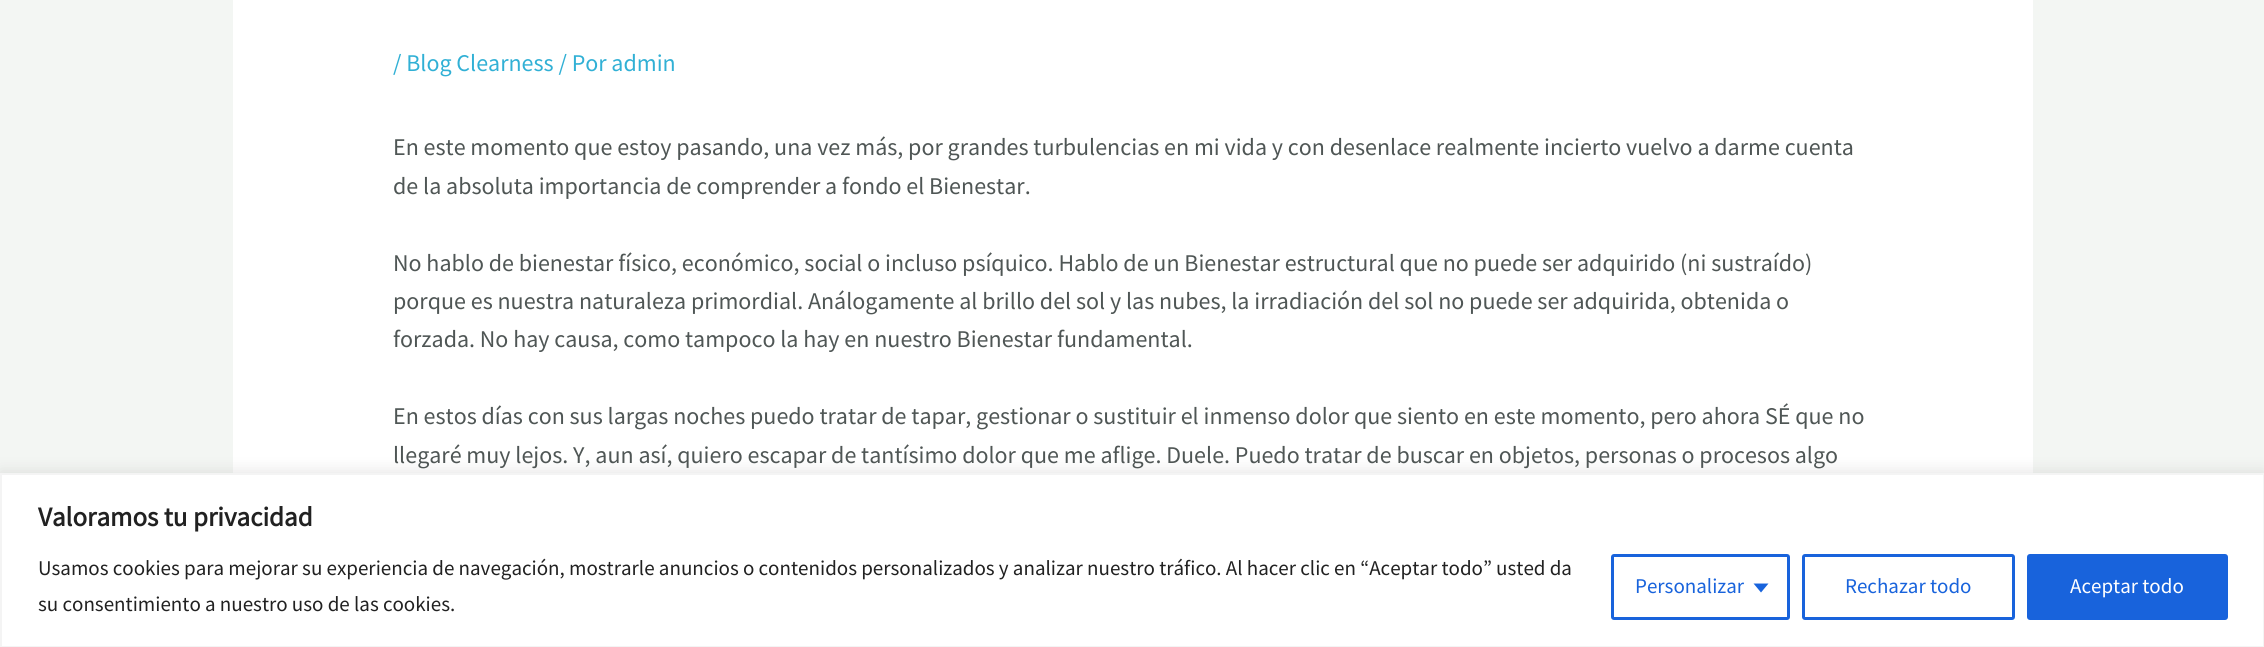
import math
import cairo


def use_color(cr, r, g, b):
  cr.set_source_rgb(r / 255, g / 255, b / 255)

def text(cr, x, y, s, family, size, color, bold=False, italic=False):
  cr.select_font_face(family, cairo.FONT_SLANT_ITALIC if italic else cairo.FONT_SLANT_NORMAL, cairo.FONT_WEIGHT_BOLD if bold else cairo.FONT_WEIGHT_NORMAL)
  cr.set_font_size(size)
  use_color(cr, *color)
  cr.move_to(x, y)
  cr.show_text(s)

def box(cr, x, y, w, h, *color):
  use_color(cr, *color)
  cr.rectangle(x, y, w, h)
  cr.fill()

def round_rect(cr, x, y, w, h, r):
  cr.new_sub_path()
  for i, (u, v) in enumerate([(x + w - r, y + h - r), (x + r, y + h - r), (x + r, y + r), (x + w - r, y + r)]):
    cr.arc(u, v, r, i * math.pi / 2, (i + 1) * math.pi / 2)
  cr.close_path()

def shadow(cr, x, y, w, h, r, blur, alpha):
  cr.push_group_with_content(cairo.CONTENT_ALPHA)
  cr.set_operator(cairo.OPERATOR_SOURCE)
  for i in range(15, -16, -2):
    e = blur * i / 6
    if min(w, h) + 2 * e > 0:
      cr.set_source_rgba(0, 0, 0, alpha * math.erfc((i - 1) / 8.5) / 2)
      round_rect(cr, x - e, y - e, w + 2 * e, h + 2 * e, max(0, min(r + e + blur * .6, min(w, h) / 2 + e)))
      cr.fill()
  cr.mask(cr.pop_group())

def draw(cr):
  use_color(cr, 243, 246, 243)
  cr.paint()
  box(cr, 233, 0, 1800, 473, 255, 255, 255)
  use_color(cr, 172, 171, 171)
  shadow(cr, 0, 471, 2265, 176, 0, 7.5, 0.3)
  use_color(cr, 255, 255, 255)
  cr.rectangle(1, 474, 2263, 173)
  cr.fill_preserve()
  use_color(cr, 244, 244, 244)
  cr.stroke()
  round_rect(cr, 1612.5, 555.5, 176, 63, 1.5)
  use_color(cr, 24, 99, 220)
  cr.set_line_width(3)
  cr.stroke()
  cr.new_path()
  cr.move_to(1753.5, 583.5)
  cr.line_to(1768.5, 583.5)
  cr.line_to(1761, 592.5)
  cr.close_path()
  cr.fill()
  round_rect(cr, 1803.5, 555.5, 210, 63, 1.5)
  cr.stroke()
  round_rect(cr, 2028.5, 555.5, 198, 63, 1.5)
  cr.fill_preserve()
  cr.stroke()
  text(cr, 393, 71, "/ Blog Clearness / Por admin", "Source Sans Pro", 24, (49, 176, 213))
  text(cr, 393, 155, "En este momento que estoy pasando, una vez más, por grandes turbulencias en mi vida y con desenlace realmente incierto vuelvo a darme cuenta", "Source Sans Pro", 24, (79, 86, 85))
  text(cr, 393, 194, "de la absoluta importancia de comprender a fondo el Bienestar.", "Source Sans Pro", 24, (79, 86, 85))
  text(cr, 393, 271, "No hablo de bienestar físico, económico, social o incluso psíquico. Hablo de un Bienestar estructural que no puede ser adquirido (ni sustraído)", "Source Sans Pro", 24, (79, 86, 85))
  text(cr, 393, 309, "porque es nuestra naturaleza primordial. Análogamente al brillo del sol y las nubes, la irradiación del sol no puede ser adquirida, obtenida o", "Source Sans Pro", 24, (79, 86, 85))
  text(cr, 393, 347, "forzada. No hay causa, como tampoco la hay en nuestro Bienestar fundamental.", "Source Sans Pro", 24, (79, 86, 85))
  text(cr, 393, 424, "En estos días con sus largas noches puedo tratar de tapar, gestionar o sustituir el inmenso dolor que siento en este momento, pero ahora SÉ que no", "Source Sans Pro", 24, (79, 86, 85))
  text(cr, 393, 463, "llegaré muy lejos. Y, aun así, quiero escapar de tantísimo dolor que me aflige. Duele. Puedo tratar de buscar en objetos, personas o procesos algo", "Source Sans Pro", 24, (79, 86, 85))
  text(cr, 38, 526, "Valoramos tu privacidad", "Source Sans Pro", 27, (33, 33, 33), bold=True)
  text(cr, 38, 575, "Usamos cookies para mejorar su experiencia de navegación, mostrarle anuncios o contenidos personalizados y analizar nuestro tráfico. Al hacer clic en “Aceptar todo” usted da", "Source Sans Pro", 21, (33, 33, 33))
  text(cr, 38, 611, "su consentimiento a nuestro uso de las cookies.", "Source Sans Pro", 21, (33, 33, 33))
  text(cr, 1635, 593, "Personalizar", "Source Sans Pro", 21, (24, 99, 220))
  text(cr, 1845, 593, "Rechazar todo", "Source Sans Pro", 21, (24, 99, 220))
  text(cr, 2070, 593, "Aceptar todo", "Source Sans Pro", 21, (255, 255, 255))


surface = cairo.ImageSurface(cairo.FORMAT_RGB24, 2264, 647)
cr = cairo.Context(surface)
options = cairo.FontOptions()
options.set_hint_metrics(cairo.HINT_METRICS_OFF)
options.set_hint_style(cairo.HINT_STYLE_NONE)
cr.set_font_options(options)
cr.set_miter_limit(4)
draw(cr)
surface.write_to_png("out.png")
